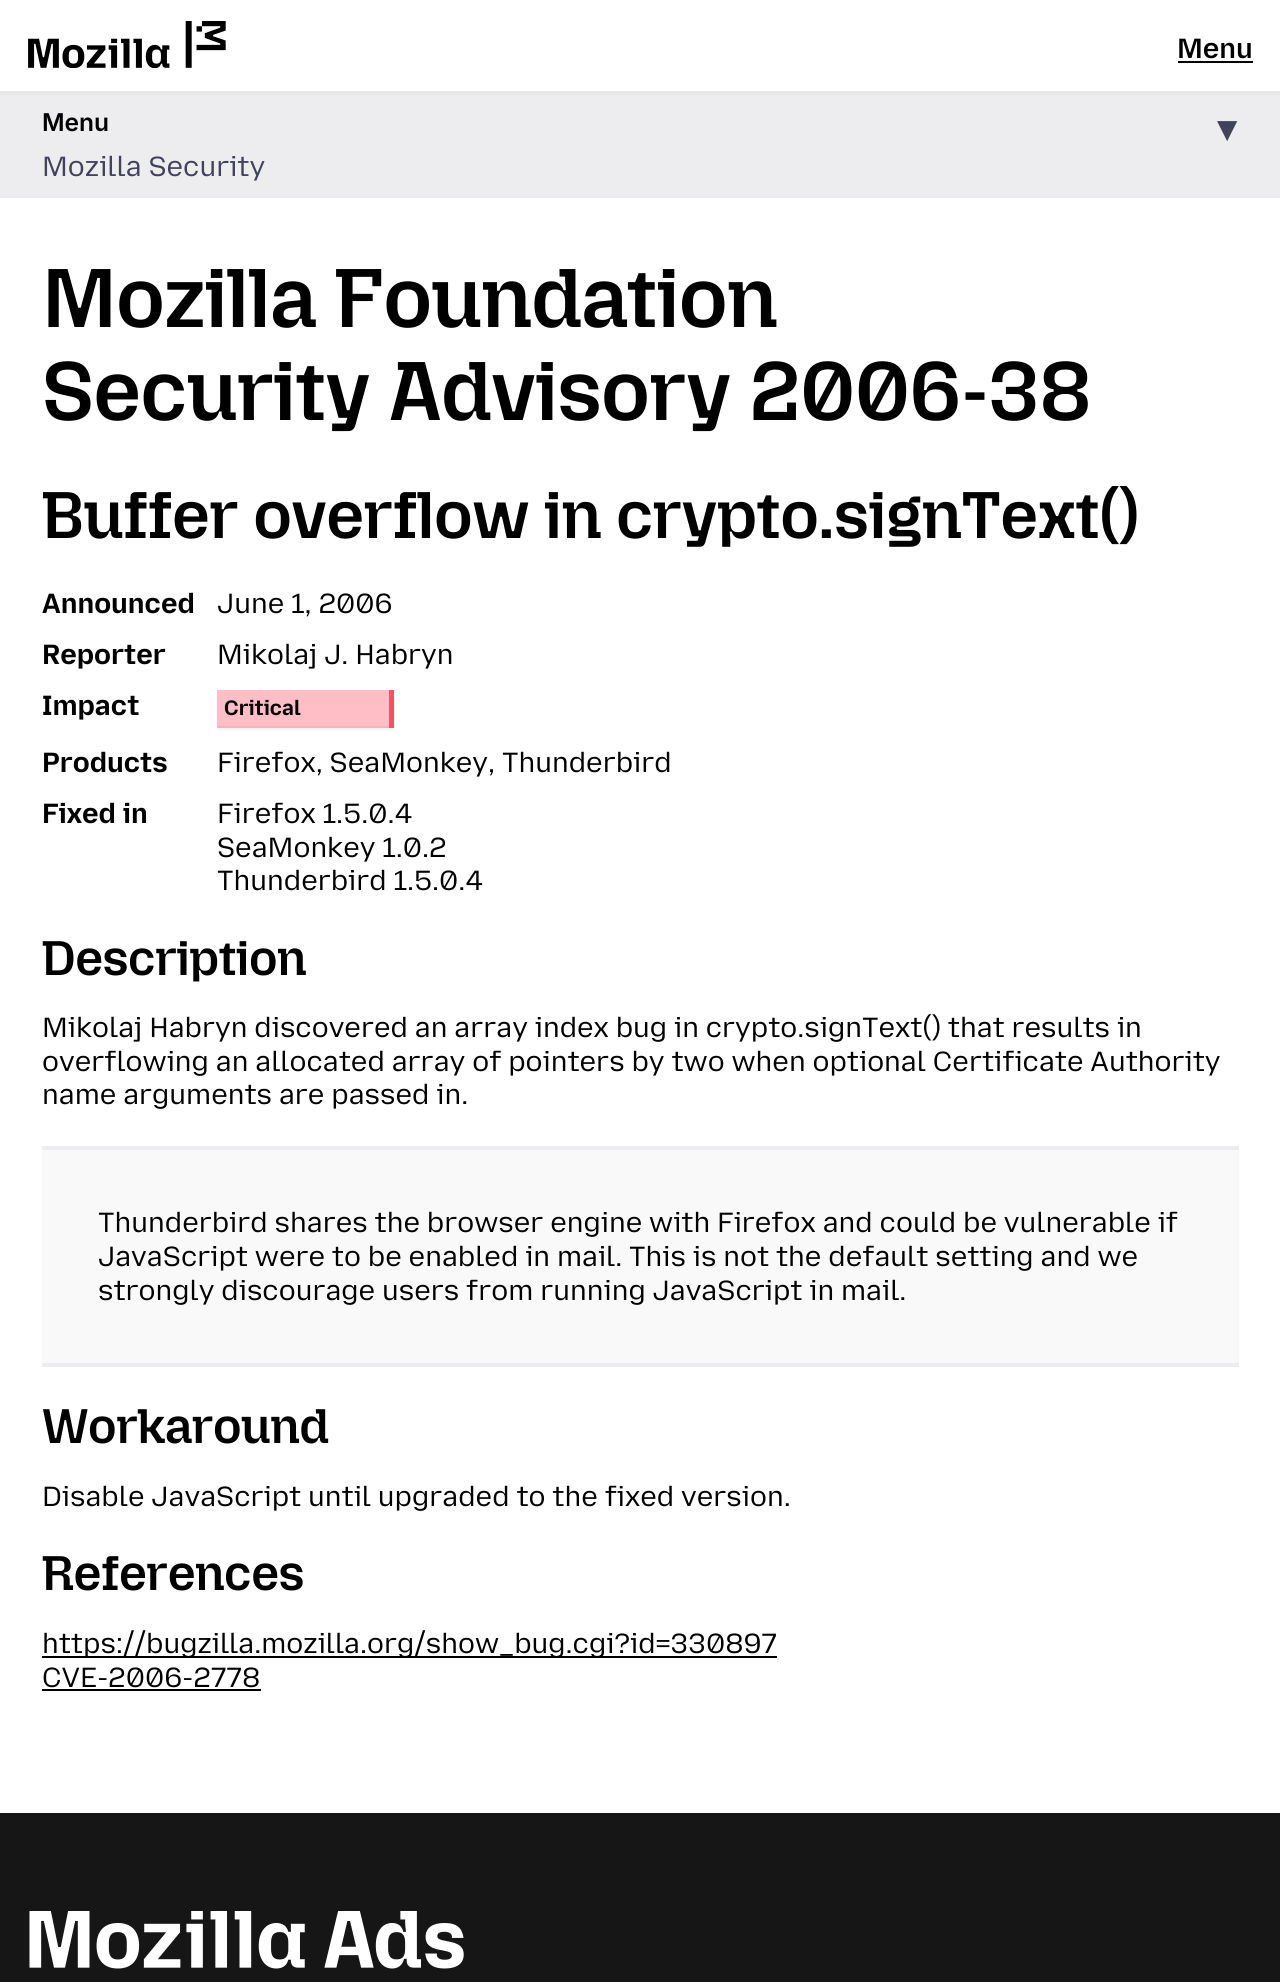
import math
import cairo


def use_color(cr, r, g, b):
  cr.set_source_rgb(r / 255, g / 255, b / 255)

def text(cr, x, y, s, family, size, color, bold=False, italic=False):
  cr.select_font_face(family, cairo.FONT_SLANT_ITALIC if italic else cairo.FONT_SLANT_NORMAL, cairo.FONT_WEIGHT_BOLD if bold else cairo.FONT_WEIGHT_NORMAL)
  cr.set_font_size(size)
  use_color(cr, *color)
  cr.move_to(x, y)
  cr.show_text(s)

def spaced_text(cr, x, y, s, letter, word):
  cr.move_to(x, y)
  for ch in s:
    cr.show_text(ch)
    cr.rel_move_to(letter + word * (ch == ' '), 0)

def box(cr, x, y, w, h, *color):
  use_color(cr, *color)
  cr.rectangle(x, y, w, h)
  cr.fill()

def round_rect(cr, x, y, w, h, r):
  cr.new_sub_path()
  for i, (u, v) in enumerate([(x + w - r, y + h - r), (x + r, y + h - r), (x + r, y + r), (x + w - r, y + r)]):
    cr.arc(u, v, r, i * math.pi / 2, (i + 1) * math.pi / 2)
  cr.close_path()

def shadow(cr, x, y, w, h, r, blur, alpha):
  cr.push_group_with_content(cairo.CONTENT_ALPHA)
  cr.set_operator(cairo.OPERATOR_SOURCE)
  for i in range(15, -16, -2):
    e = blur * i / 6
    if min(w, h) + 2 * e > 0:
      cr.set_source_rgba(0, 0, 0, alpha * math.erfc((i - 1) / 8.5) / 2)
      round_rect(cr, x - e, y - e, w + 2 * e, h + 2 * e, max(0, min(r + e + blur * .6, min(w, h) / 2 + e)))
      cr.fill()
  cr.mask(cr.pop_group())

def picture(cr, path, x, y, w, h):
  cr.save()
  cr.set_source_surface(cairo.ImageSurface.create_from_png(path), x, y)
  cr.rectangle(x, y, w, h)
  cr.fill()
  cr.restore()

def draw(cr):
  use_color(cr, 255, 255, 255)
  cr.paint()
  box(cr, 0, 91, 1280, 4, 232, 232, 232)
  picture(cr, "img_01.png", 28, 21, 198, 47)
  box(cr, 1178, 61, 75, 2, 0, 0, 0)
  box(cr, 0, 95, 1280, 103, 237, 237, 240)
  use_color(cr, 0, 0, 0)
  shadow(cr, 217, 691, 177, 39, 0, 1, 0.05)
  box(cr, 217, 690, 172, 36, 255, 189, 197)
  box(cr, 217, 726, 172, 2, 242, 180, 187)
  box(cr, 389, 690, 5, 38, 255, 79, 94)
  box(cr, 42, 1150, 1197, 213, 249, 249, 250)
  box(cr, 42, 1146, 1197, 4, 237, 237, 240)
  box(cr, 42, 1363, 1197, 4, 237, 237, 240)
  box(cr, 42, 1656, 735, 2, 0, 0, 0)
  box(cr, 42, 1689, 219, 2, 0, 0, 0)
  box(cr, 0, 1813, 1280, 169, 22, 22, 22)
  picture(cr, "img_02.png", 29, 1911, 435, 58)
  text(cr, 1177, 58, "Menu", "Mozilla Text SemiBold", 28, (0, 0, 0))
  text(cr, 42, 131, "Menu", "Inter SemiBold", 24.5, (0, 0, 0))
  cr.save()
  cr.translate(1217, 121)
  cr.rotate(90 * math.pi / 180)
  text(cr, 0, 0, "▸", "DejaVu Sans", 37, (66, 66, 90), bold=True)
  cr.restore()
  text(cr, 42, 176, "Mozilla Security", "Mozilla Text", 28, (66, 66, 90))
  cr.select_font_face("Mozilla Headline SemiBold")
  cr.set_font_size(84)
  use_color(cr, 0, 0, 0)
  spaced_text(cr, 42, 327, "Mozilla Foundation", -0.8, 0)
  spaced_text(cr, 42, 420, "Security Advisory 2006-38", -0.8, 0)
  cr.set_font_size(66.5)
  spaced_text(cr, 42, 538, "Buffer overflow in crypto.signText()", -0.65, 0)
  text(cr, 42, 613, "Announced", "Mozilla Text", 28, (0, 0, 0), bold=True)
  text(cr, 217, 613, "June 1, 2006", "Mozilla Text", 28, (0, 0, 0))
  text(cr, 42, 664, "Reporter", "Mozilla Text", 28, (0, 0, 0), bold=True)
  text(cr, 217, 664, "Mikolaj J. Habryn", "Mozilla Text", 28, (0, 0, 0))
  text(cr, 42, 715, "Impact", "Mozilla Text", 28, (0, 0, 0), bold=True)
  text(cr, 224, 715, "Critical", "Mozilla Text", 21, (0, 0, 0), bold=True)
  text(cr, 42, 772, "Products", "Mozilla Text", 28, (0, 0, 0), bold=True)
  text(cr, 217, 772, "Firefox, SeaMonkey, Thunderbird", "Mozilla Text", 28, (0, 0, 0))
  text(cr, 42, 823, "Fixed in", "Mozilla Text", 28, (0, 0, 0), bold=True)
  text(cr, 217, 823, "Firefox 1.5.0.4", "Mozilla Text", 28, (0, 0, 0))
  text(cr, 217, 857, "SeaMonkey 1.0.2", "Mozilla Text", 28, (0, 0, 0))
  text(cr, 217, 890, "Thunderbird 1.5.0.4", "Mozilla Text", 28, (0, 0, 0))
  cr.select_font_face("Mozilla Headline SemiBold")
  cr.set_font_size(49)
  spaced_text(cr, 42, 975, "Description", -0.5, 0)
  text(cr, 42, 1037, "Mikolaj Habryn discovered an array index bug in crypto.signText() that results in", "Mozilla Text", 28, (0, 0, 0))
  text(cr, 42, 1071, "overflowing an allocated array of pointers by two when optional Certificate Authority", "Mozilla Text", 28, (0, 0, 0))
  text(cr, 42, 1104, "name arguments are passed in.", "Mozilla Text", 28, (0, 0, 0))
  text(cr, 98, 1232, "Thunderbird shares the browser engine with Firefox and could be vulnerable if", "Mozilla Text", 28, (0, 0, 0))
  text(cr, 98, 1266, "JavaScript were to be enabled in mail. This is not the default setting and we", "Mozilla Text", 28, (0, 0, 0))
  text(cr, 98, 1300, "strongly discourage users from running JavaScript in mail.", "Mozilla Text", 28, (0, 0, 0))
  cr.select_font_face("Mozilla Headline SemiBold")
  cr.set_font_size(49)
  spaced_text(cr, 42, 1443, "Workaround", -0.5, 0)
  text(cr, 42, 1506, "Disable JavaScript until upgraded to the fixed version.", "Mozilla Text", 28, (0, 0, 0))
  cr.select_font_face("Mozilla Headline SemiBold")
  cr.set_font_size(49)
  spaced_text(cr, 42, 1590, "References", -0.5, 0)
  text(cr, 42, 1653, "https://bugzilla.mozilla.org/show_bug.cgi?id=330897", "Mozilla Text", 28, (0, 0, 0))
  text(cr, 42, 1687, "CVE-2006-2778", "Mozilla Text", 28, (0, 0, 0))


surface = cairo.ImageSurface(cairo.FORMAT_RGB24, 1280, 1982)
cr = cairo.Context(surface)
options = cairo.FontOptions()
options.set_hint_metrics(cairo.HINT_METRICS_OFF)
options.set_hint_style(cairo.HINT_STYLE_NONE)
cr.set_font_options(options)
cr.set_miter_limit(4)
draw(cr)
surface.write_to_png("out.png")
